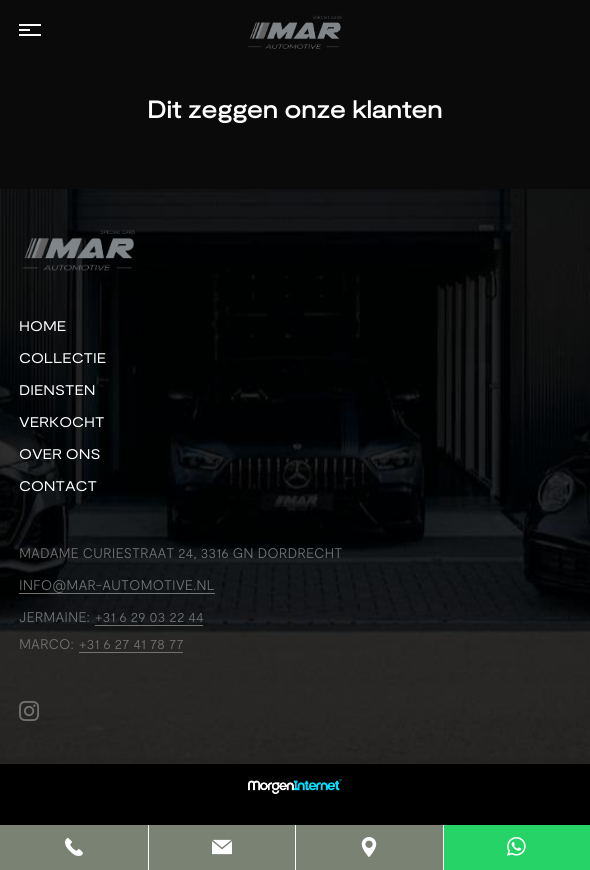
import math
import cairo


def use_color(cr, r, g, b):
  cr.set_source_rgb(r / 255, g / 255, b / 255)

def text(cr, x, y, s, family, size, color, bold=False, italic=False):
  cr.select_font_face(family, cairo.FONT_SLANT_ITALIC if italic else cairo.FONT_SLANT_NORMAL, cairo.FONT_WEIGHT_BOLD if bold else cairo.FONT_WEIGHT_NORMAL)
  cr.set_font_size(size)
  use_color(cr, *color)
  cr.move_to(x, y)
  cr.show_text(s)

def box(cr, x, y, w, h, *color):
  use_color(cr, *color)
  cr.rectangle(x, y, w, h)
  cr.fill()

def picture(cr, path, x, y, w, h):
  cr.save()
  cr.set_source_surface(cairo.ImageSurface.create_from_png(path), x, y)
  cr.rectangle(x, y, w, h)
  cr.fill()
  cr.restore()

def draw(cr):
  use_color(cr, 10, 10, 10)
  cr.paint()
  box(cr, 19, 24, 22, 2, 255, 255, 255)
  box(cr, 19, 29, 11, 2, 255, 255, 255)
  box(cr, 19, 34, 22, 2, 255, 255, 255)
  picture(cr, "img_01.png", 248, 15, 94, 34)
  picture(cr, "img_02.png", 0, 189, 590, 575)
  picture(cr, "img_03.png", 22, 230, 113, 41)
  box(cr, 19, 593, 196, 1, 114, 114, 114)
  box(cr, 95, 625, 108, 1, 114, 114, 114)
  box(cr, 79, 652, 104, 1, 114, 114, 114)
  picture(cr, "img_04.png", 19, 701, 20, 20)
  box(cr, 0, 764, 590, 61, 0, 0, 0)
  picture(cr, "img_05.png", 248, 779, 94, 15)
  box(cr, 0, 825, 443, 45, 121, 130, 115)
  picture(cr, "img_06.png", 65, 838, 18, 18)
  box(cr, 148, 825, 1, 45, 255, 255, 255)
  picture(cr, "img_07.png", 212, 839, 20, 16)
  box(cr, 295, 825, 1, 45, 255, 255, 255)
  picture(cr, "img_08.png", 361, 837, 16, 20)
  box(cr, 444, 825, 146, 45, 37, 211, 102)
  box(cr, 443, 825, 1, 45, 255, 255, 255)
  picture(cr, "img_09.png", 507, 837, 19, 19)
  text(cr, 147, 118, "Dit zeggen onze klanten", "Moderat", 24, (255, 255, 255), bold=True)
  text(cr, 19, 331, "HOME", "Moderat", 14, (255, 255, 255))
  text(cr, 19, 363, "COLLECTIE", "Moderat", 14, (255, 255, 255))
  text(cr, 19, 395, "DIENSTEN", "Moderat", 14, (255, 255, 255))
  text(cr, 19, 427, "VERKOCHT", "Moderat", 14, (255, 255, 255))
  text(cr, 19, 459, "OVER ONS", "Moderat", 14, (255, 255, 255))
  text(cr, 19, 491, "CONTACT", "Moderat", 14, (255, 255, 255))
  text(cr, 19, 558, "MADAME CURIESTRAAT 24, 3316 GN DORDRECHT", "Moderat Light", 14, (114, 114, 114))
  text(cr, 19, 590, "INFO@MAR-AUTOMOTIVE.NL", "Moderat Light", 14, (114, 114, 114))
  text(cr, 19, 622, "JERMAINE:", "Moderat Light", 14, (114, 114, 114))
  text(cr, 95, 622, "+31 6 29 03 22 44", "Moderat Light", 14, (114, 114, 114))
  text(cr, 19, 649, "MARCO:", "Moderat Light", 14, (114, 114, 114))
  text(cr, 79, 649, "+31 6 27 41 78 77", "Moderat Light", 14, (114, 114, 114))


surface = cairo.ImageSurface(cairo.FORMAT_RGB24, 590, 870)
cr = cairo.Context(surface)
options = cairo.FontOptions()
options.set_hint_metrics(cairo.HINT_METRICS_OFF)
options.set_hint_style(cairo.HINT_STYLE_NONE)
cr.set_font_options(options)
cr.set_miter_limit(4)
draw(cr)
surface.write_to_png("out.png")
